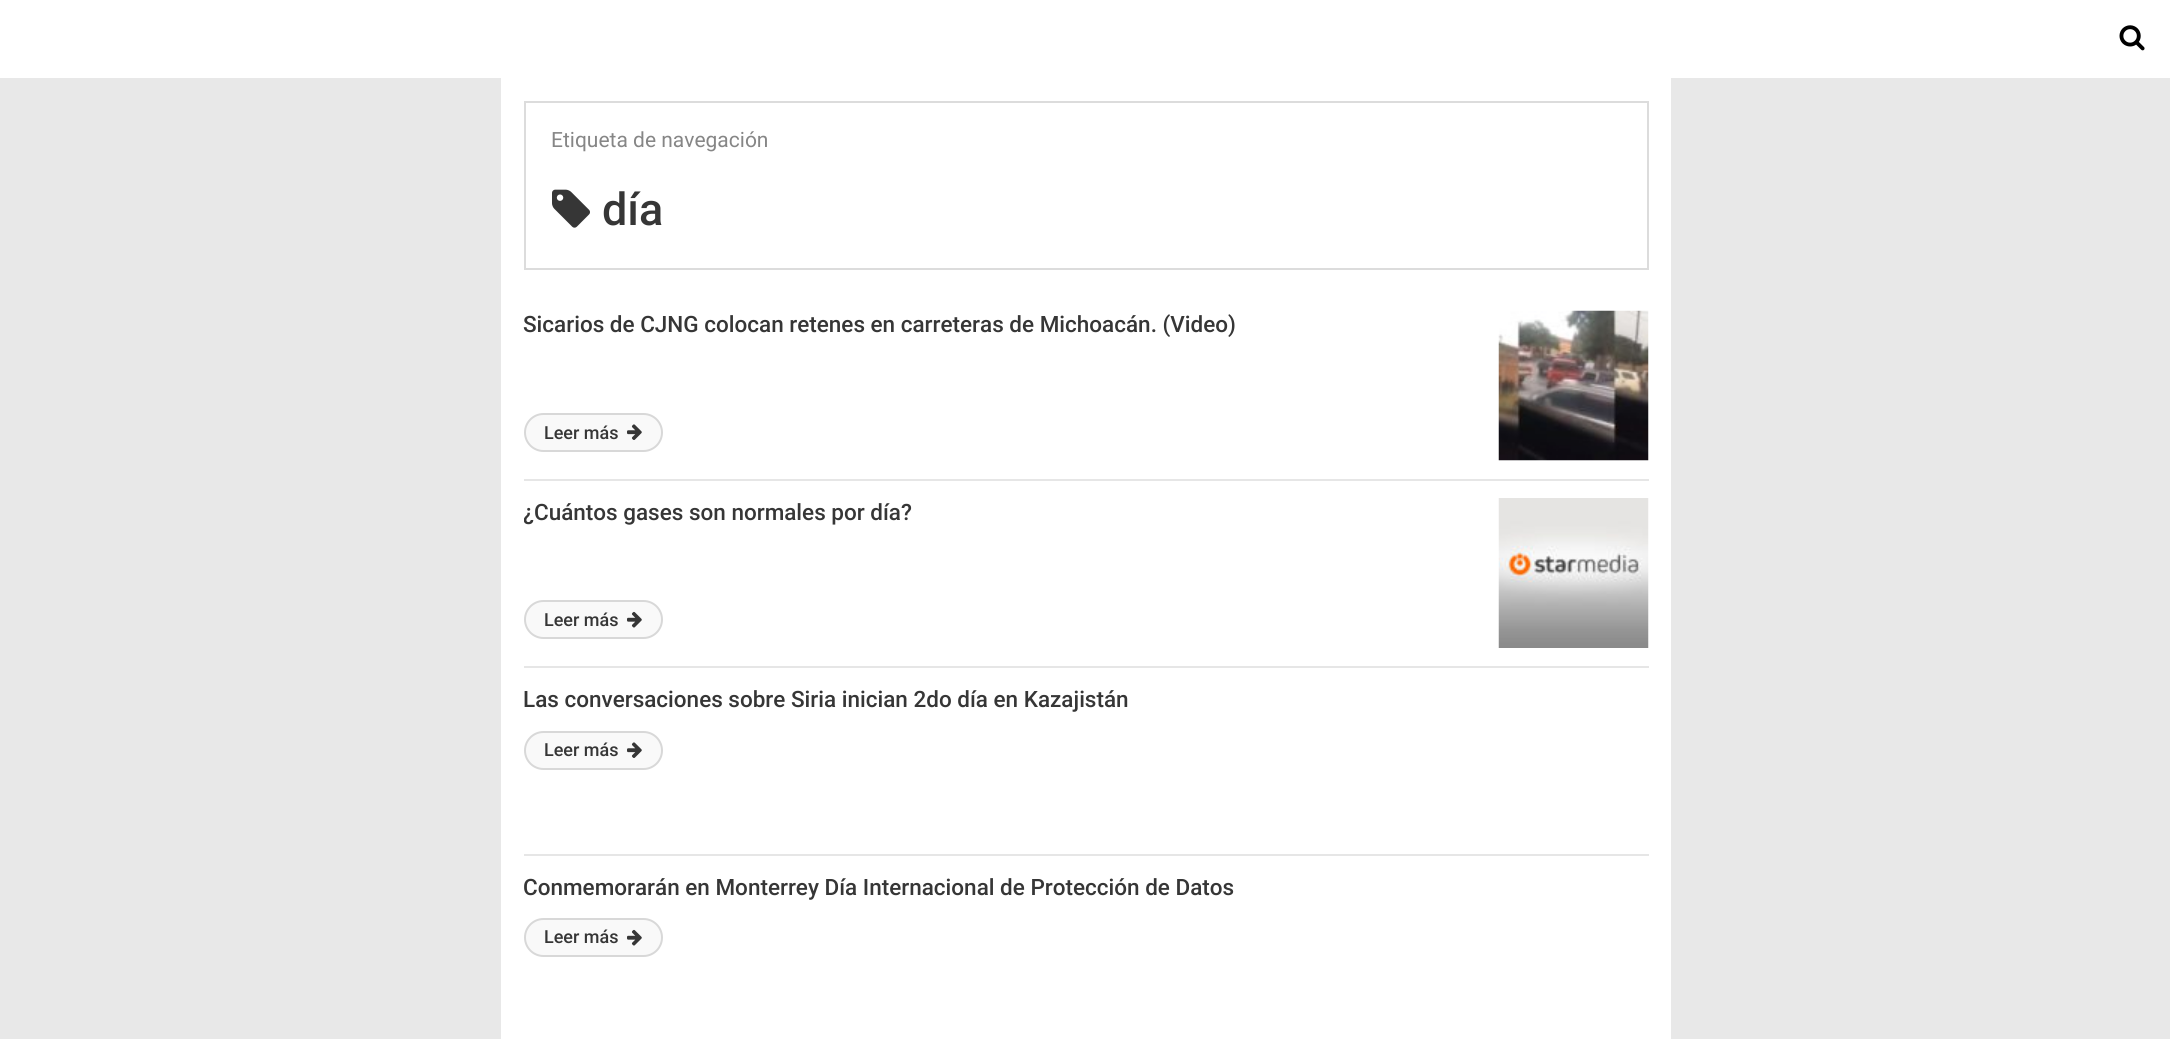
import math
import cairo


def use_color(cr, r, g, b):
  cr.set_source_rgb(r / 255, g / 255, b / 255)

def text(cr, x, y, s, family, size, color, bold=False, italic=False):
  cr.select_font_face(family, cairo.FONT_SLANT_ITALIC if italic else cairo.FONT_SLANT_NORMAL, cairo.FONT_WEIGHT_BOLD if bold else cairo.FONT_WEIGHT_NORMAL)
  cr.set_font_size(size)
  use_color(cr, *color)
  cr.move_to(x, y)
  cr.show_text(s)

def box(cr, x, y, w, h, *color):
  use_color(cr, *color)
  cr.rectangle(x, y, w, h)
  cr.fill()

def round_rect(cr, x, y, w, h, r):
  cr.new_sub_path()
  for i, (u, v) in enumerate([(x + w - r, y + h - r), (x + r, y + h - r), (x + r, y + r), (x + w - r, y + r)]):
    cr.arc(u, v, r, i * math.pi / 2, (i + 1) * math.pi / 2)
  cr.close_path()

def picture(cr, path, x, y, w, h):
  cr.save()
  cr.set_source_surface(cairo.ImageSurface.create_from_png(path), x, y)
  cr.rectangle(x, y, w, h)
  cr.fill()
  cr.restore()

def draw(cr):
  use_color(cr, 232, 232, 232)
  cr.paint()
  box(cr, 501, 78, 1170, 961, 255, 255, 255)
  box(cr, 0, 0, 2170, 78, 255, 255, 255)
  picture(cr, "img_01.png", 2119, 25, 26, 26)
  cr.rectangle(525, 102, 1123, 167)
  use_color(cr, 220, 220, 220)
  cr.stroke()
  picture(cr, "img_02.png", 552, 189, 38, 39)
  box(cr, 524, 479, 1125, 2, 230, 230, 230)
  picture(cr, "img_03.png", 1498, 310, 151, 151)
  use_color(cr, 249, 249, 249)
  round_rect(cr, 525, 414, 137, 37, 18.5)
  cr.fill_preserve()
  use_color(cr, 216, 216, 216)
  cr.stroke()
  picture(cr, "img_04.png", 627, 424, 15, 16)
  box(cr, 524, 666, 1125, 2, 230, 230, 230)
  picture(cr, "img_05.png", 1498, 498, 151, 150)
  use_color(cr, 249, 249, 249)
  round_rect(cr, 525, 601, 137, 37, 18.5)
  cr.fill_preserve()
  use_color(cr, 216, 216, 216)
  cr.stroke()
  picture(cr, "img_06.png", 627, 611, 15, 17)
  box(cr, 524, 854, 1125, 2, 230, 230, 230)
  use_color(cr, 249, 249, 249)
  round_rect(cr, 525, 732, 137, 37, 18.5)
  cr.fill_preserve()
  use_color(cr, 216, 216, 216)
  cr.stroke()
  picture(cr, "img_04.png", 627, 742, 15, 16)
  use_color(cr, 249, 249, 249)
  round_rect(cr, 525, 919, 137, 37, 18.5)
  cr.fill_preserve()
  use_color(cr, 216, 216, 216)
  cr.stroke()
  picture(cr, "img_06.png", 627, 929, 15, 17)
  text(cr, 551, 147, "Etiqueta de navegación", "Roboto", 21, (134, 134, 134))
  text(cr, 602, 225, "día", "Roboto Medium", 45, (54, 54, 54))
  text(cr, 523, 332, "Sicarios de CJNG colocan retenes en carreteras de Michoacán. (Video)", "Roboto Medium", 22.5, (54, 54, 54))
  text(cr, 544, 439, "Leer más", "Roboto Medium", 18, (54, 54, 54))
  cr.save()
  cr.rectangle(524, 498, 952, 30)
  cr.clip()
  text(cr, 523, 520, "¿Cuántos gases son normales por día?", "Roboto Medium", 22.5, (54, 54, 54))
  cr.restore()
  text(cr, 544, 626, "Leer más", "Roboto Medium", 18, (54, 54, 54))
  text(cr, 523, 707, "Las conversaciones sobre Siria inician 2do día en Kazajistán", "Roboto Medium", 22.5, (54, 54, 54))
  text(cr, 544, 756, "Leer más", "Roboto Medium", 18, (54, 54, 54))
  cr.save()
  cr.rectangle(524, 873, 1125, 30)
  cr.clip()
  text(cr, 523, 895, "Conmemorarán en Monterrey Día Internacional de Protección de Datos", "Roboto Medium", 22.5, (54, 54, 54))
  cr.restore()
  text(cr, 544, 943, "Leer más", "Roboto Medium", 18, (54, 54, 54))


surface = cairo.ImageSurface(cairo.FORMAT_RGB24, 2170, 1039)
cr = cairo.Context(surface)
options = cairo.FontOptions()
options.set_hint_metrics(cairo.HINT_METRICS_OFF)
options.set_hint_style(cairo.HINT_STYLE_NONE)
cr.set_font_options(options)
cr.set_miter_limit(4)
draw(cr)
surface.write_to_png("out.png")
